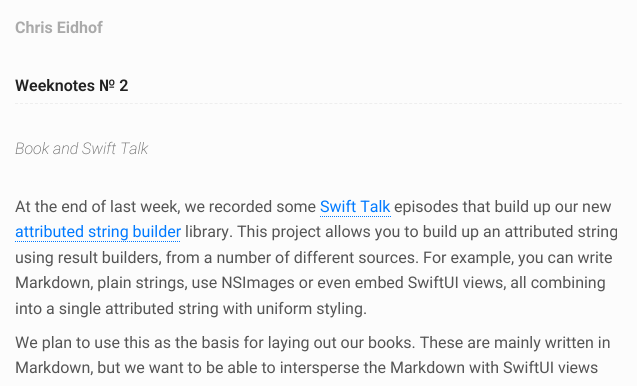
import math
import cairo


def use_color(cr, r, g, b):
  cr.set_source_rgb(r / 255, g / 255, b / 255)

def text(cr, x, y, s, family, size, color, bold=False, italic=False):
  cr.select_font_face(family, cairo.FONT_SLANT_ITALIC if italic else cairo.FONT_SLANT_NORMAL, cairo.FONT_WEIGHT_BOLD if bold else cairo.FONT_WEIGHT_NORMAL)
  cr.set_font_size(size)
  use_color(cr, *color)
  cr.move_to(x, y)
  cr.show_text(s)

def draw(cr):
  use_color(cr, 252, 252, 252)
  cr.paint()
  cr.new_path()
  cr.move_to(15, 103.5)
  cr.line_to(622, 103.5)
  use_color(cr, 238, 238, 238)
  cr.set_line_width(1)
  cr.set_dash([3, 1.99])
  cr.stroke()
  cr.new_path()
  cr.move_to(320, 216.5)
  cr.line_to(391, 216.5)
  use_color(cr, 0, 122, 255)
  cr.set_dash([1, 1])
  cr.stroke()
  cr.new_path()
  cr.move_to(15, 241.5)
  cr.line_to(181, 241.5)
  cr.stroke()
  text(cr, 15, 33, "Chris Eidhof", "Roboto", 16, (170, 170, 170), bold=True)
  text(cr, 15, 91, "Weeknotes № 2", "Roboto SemiBold", 16, (34, 34, 34))
  text(cr, 15, 154, "Book and Swift Talk", "Roboto ExtraLight", 16, (102, 102, 102), italic=True)
  text(cr, 15, 212, "At the end of last week, we recorded some", "Roboto", 16, (85, 85, 85))
  text(cr, 320, 212, "Swift Talk", "Roboto", 16, (0, 122, 255))
  text(cr, 394, 212, "episodes that build up our new", "Roboto", 16, (85, 85, 85))
  text(cr, 15, 237, "attributed string builder", "Roboto", 16, (0, 122, 255))
  text(cr, 185, 237, "library. This project allows you to build up an attributed string", "Roboto", 16, (85, 85, 85))
  text(cr, 15, 263, "using result builders, from a number of different sources. For example, you can write", "Roboto", 16, (85, 85, 85))
  text(cr, 15, 288, "Markdown, plain strings, use NSImages or even embed SwiftUI views, all combining", "Roboto", 16, (85, 85, 85))
  text(cr, 15, 314, "into a single attributed string with uniform styling.", "Roboto", 16, (85, 85, 85))
  text(cr, 15, 348, "We plan to use this as the basis for laying out our books. These are mainly written in", "Roboto", 16, (85, 85, 85))
  text(cr, 15, 373, "Markdown, but we want to be able to intersperse the Markdown with SwiftUI views", "Roboto", 16, (85, 85, 85))


surface = cairo.ImageSurface(cairo.FORMAT_RGB24, 637, 386)
cr = cairo.Context(surface)
options = cairo.FontOptions()
options.set_hint_metrics(cairo.HINT_METRICS_OFF)
options.set_hint_style(cairo.HINT_STYLE_NONE)
cr.set_font_options(options)
cr.set_miter_limit(4)
draw(cr)
surface.write_to_png("out.png")
